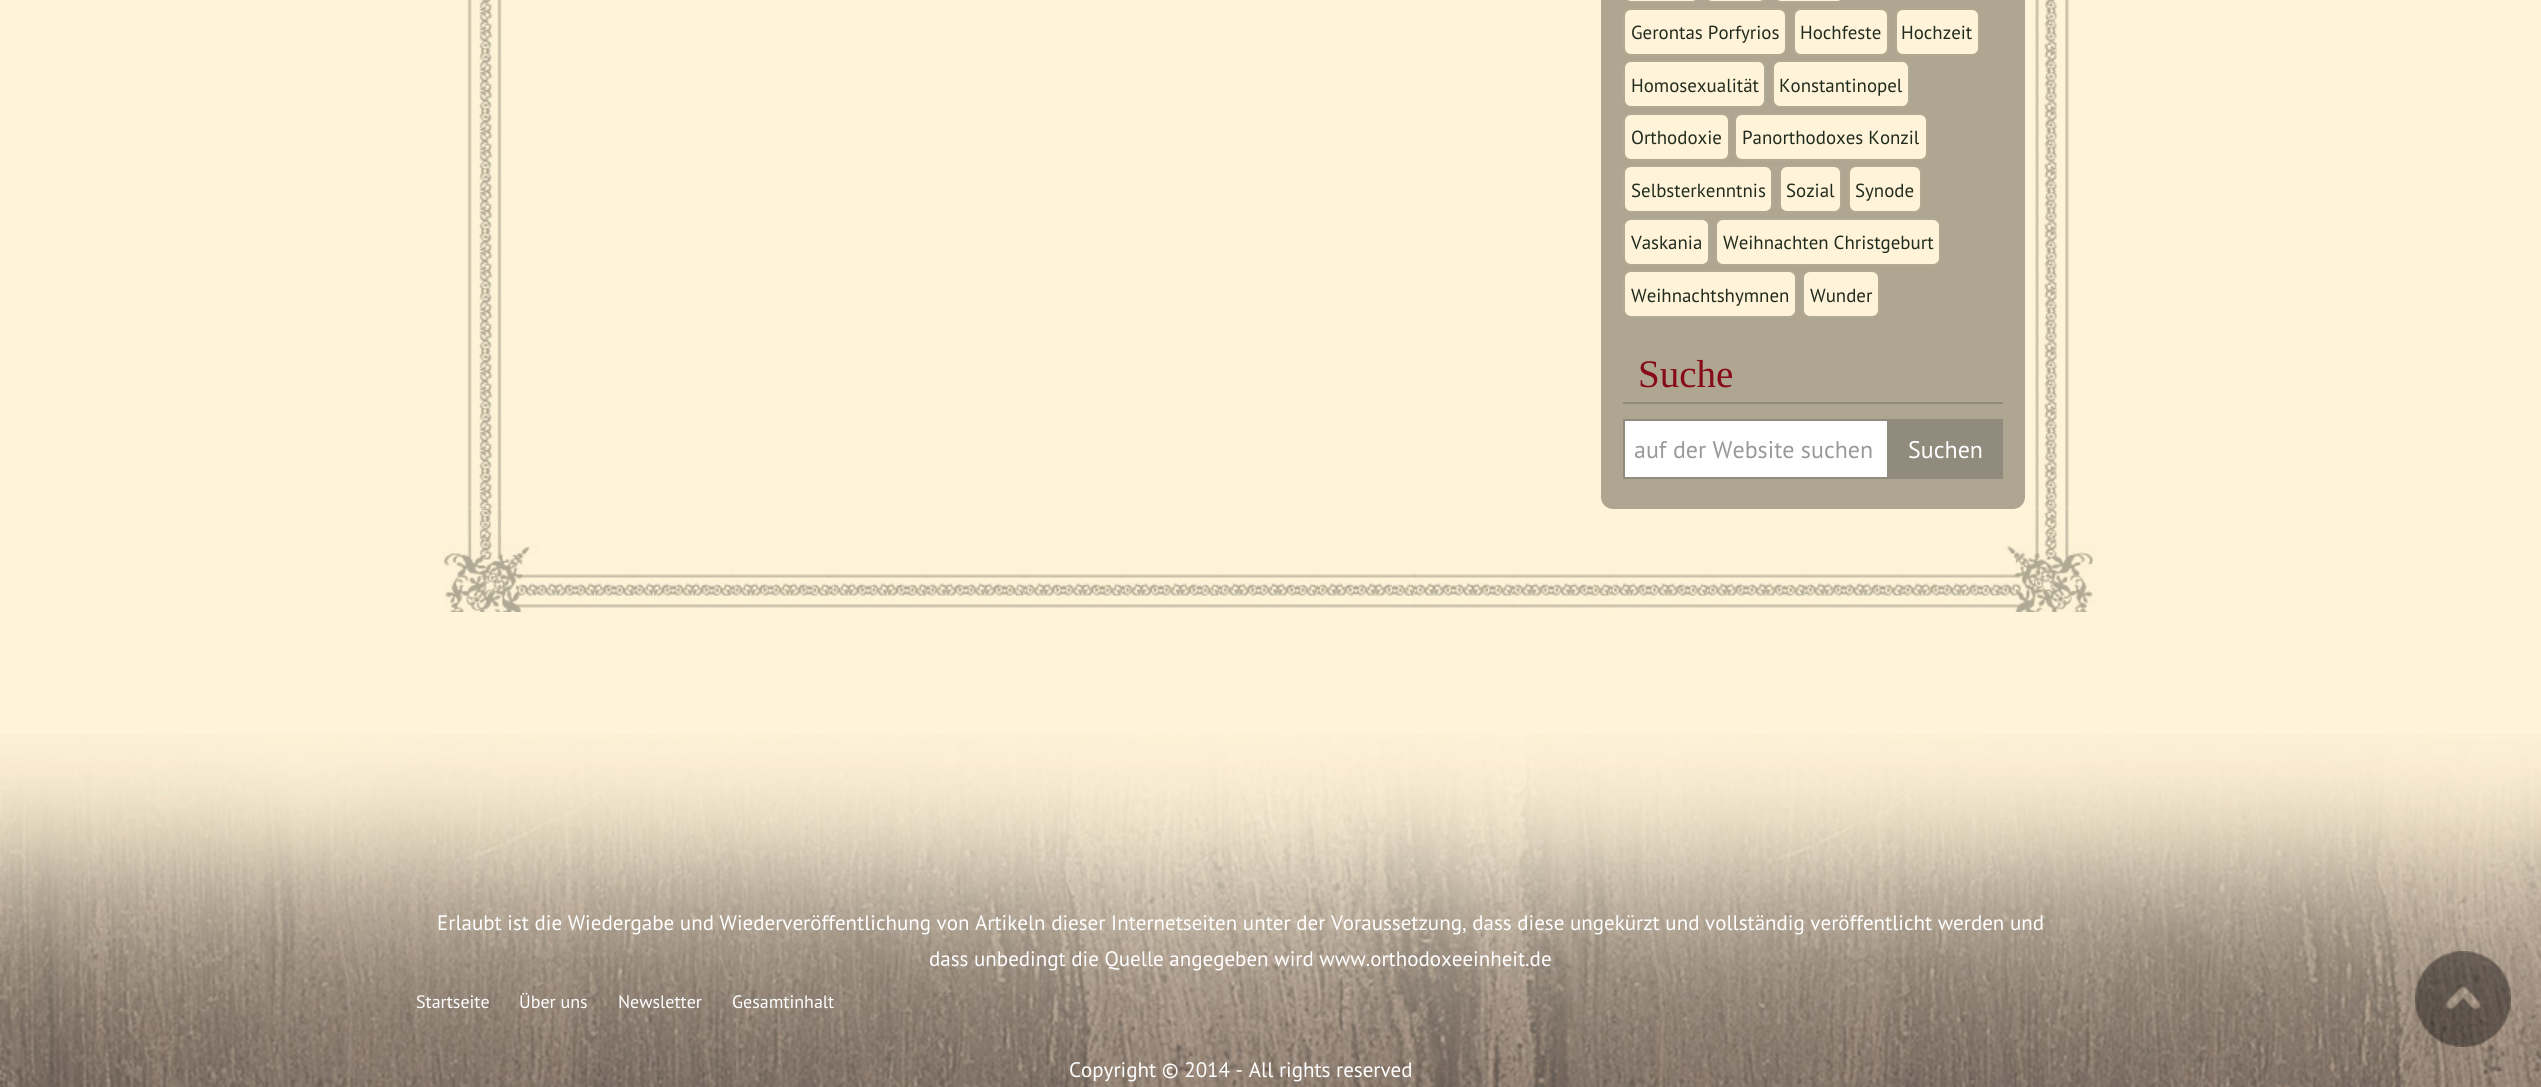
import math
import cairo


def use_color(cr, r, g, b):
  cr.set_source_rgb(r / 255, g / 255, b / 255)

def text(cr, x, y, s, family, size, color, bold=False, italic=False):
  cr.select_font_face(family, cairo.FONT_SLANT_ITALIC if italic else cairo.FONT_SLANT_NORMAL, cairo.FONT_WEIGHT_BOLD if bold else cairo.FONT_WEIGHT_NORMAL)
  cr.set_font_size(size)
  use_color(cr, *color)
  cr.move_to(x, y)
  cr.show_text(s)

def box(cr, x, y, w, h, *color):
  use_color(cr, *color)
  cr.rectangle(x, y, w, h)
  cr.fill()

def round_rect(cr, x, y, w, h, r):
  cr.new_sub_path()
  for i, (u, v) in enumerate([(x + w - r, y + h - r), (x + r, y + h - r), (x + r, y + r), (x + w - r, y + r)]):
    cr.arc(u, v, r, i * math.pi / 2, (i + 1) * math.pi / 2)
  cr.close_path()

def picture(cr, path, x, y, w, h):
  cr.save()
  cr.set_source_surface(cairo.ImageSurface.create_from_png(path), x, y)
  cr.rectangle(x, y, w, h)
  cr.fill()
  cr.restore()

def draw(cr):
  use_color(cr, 255, 243, 217)
  cr.paint()
  picture(cr, "img_02.png", 443, 508, 1655, 104)
  picture(cr, "img_01.png", 467, 0, 1602, 509)
  use_color(cr, 174, 166, 144)
  round_rect(cr, 1601, -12, 424, 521, 12)
  cr.fill()
  use_color(cr, 255, 243, 217)
  round_rect(cr, 1624, -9, 75, 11, 7)
  cr.fill_preserve()
  use_color(cr, 178, 169, 147)
  cr.stroke()
  use_color(cr, 255, 243, 217)
  round_rect(cr, 1705, -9, 61, 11, 7)
  cr.fill_preserve()
  use_color(cr, 178, 169, 147)
  cr.stroke()
  use_color(cr, 255, 243, 217)
  round_rect(cr, 1774, -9, 70, 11, 7)
  cr.fill_preserve()
  use_color(cr, 178, 169, 147)
  cr.stroke()
  use_color(cr, 255, 243, 217)
  round_rect(cr, 1624, 9, 162, 46, 7)
  cr.fill_preserve()
  use_color(cr, 178, 169, 147)
  cr.stroke()
  use_color(cr, 255, 243, 217)
  round_rect(cr, 1794, 9, 94, 46, 7)
  cr.fill_preserve()
  use_color(cr, 178, 169, 147)
  cr.stroke()
  use_color(cr, 255, 243, 217)
  round_rect(cr, 1896, 9, 83, 46, 7)
  cr.fill_preserve()
  use_color(cr, 178, 169, 147)
  cr.stroke()
  use_color(cr, 255, 243, 217)
  round_rect(cr, 1624, 61, 141, 46, 7)
  cr.fill_preserve()
  use_color(cr, 178, 169, 147)
  cr.stroke()
  use_color(cr, 255, 243, 217)
  round_rect(cr, 1773, 61, 136, 46, 7)
  cr.fill_preserve()
  use_color(cr, 178, 169, 147)
  cr.stroke()
  use_color(cr, 255, 243, 217)
  round_rect(cr, 1624, 114, 105, 46, 7)
  cr.fill_preserve()
  use_color(cr, 178, 169, 147)
  cr.stroke()
  use_color(cr, 255, 243, 217)
  round_rect(cr, 1735, 114, 192, 46, 7)
  cr.fill_preserve()
  use_color(cr, 178, 169, 147)
  cr.stroke()
  use_color(cr, 255, 243, 217)
  round_rect(cr, 1624, 166, 148, 46, 7)
  cr.fill_preserve()
  use_color(cr, 178, 169, 147)
  cr.stroke()
  use_color(cr, 255, 243, 217)
  round_rect(cr, 1780, 166, 61, 46, 7)
  cr.fill_preserve()
  use_color(cr, 178, 169, 147)
  cr.stroke()
  use_color(cr, 255, 243, 217)
  round_rect(cr, 1849, 166, 72, 46, 7)
  cr.fill_preserve()
  use_color(cr, 178, 169, 147)
  cr.stroke()
  use_color(cr, 255, 243, 217)
  round_rect(cr, 1624, 219, 85, 46, 7)
  cr.fill_preserve()
  use_color(cr, 178, 169, 147)
  cr.stroke()
  use_color(cr, 255, 243, 217)
  round_rect(cr, 1716, 219, 224, 46, 7)
  cr.fill_preserve()
  use_color(cr, 178, 169, 147)
  cr.stroke()
  use_color(cr, 255, 243, 217)
  round_rect(cr, 1624, 271, 172, 46, 7)
  cr.fill_preserve()
  use_color(cr, 178, 169, 147)
  cr.stroke()
  use_color(cr, 255, 243, 217)
  round_rect(cr, 1803, 271, 76, 46, 7)
  cr.fill_preserve()
  use_color(cr, 178, 169, 147)
  cr.stroke()
  box(cr, 1623, 402, 380, 2, 145, 139, 125)
  use_color(cr, 255, 255, 255)
  cr.rectangle(1624, 420, 264, 58)
  cr.fill_preserve()
  use_color(cr, 145, 139, 125)
  cr.stroke()
  box(cr, 1889, 419, 114, 60, 145, 139, 125)
  picture(cr, "img_03.png", 0, 734, 2541, 353)
  picture(cr, "img_04.png", 2415, 951, 96, 96)
  text(cr, 1631, 39, "Gerontas Porfyrios", "PT Sans", 18.9, (33, 43, 29))
  text(cr, 1800, 39, "Hochfeste", "PT Sans", 18.9, (33, 43, 29))
  text(cr, 1901, 39, "Hochzeit", "PT Sans", 18.9, (33, 43, 29))
  text(cr, 1631, 92, "Homosexualität", "PT Sans", 18.9, (33, 43, 29))
  text(cr, 1779, 92, "Konstantinopel", "PT Sans", 18.9, (33, 43, 29))
  text(cr, 1631, 144, "Orthodoxie", "PT Sans", 18.9, (33, 43, 29))
  text(cr, 1742, 144, "Panorthodoxes Konzil", "PT Sans", 18.9, (33, 43, 29))
  text(cr, 1631, 197, "Selbsterkenntnis", "PT Sans", 18.9, (33, 43, 29))
  text(cr, 1786, 197, "Sozial", "PT Sans", 18.9, (33, 43, 29))
  text(cr, 1855, 197, "Synode", "PT Sans", 18.9, (33, 43, 29))
  text(cr, 1631, 249, "Vaskania", "PT Sans", 18.9, (33, 43, 29))
  text(cr, 1723, 249, "Weihnachten Christgeburt", "PT Sans", 18.9, (33, 43, 29))
  text(cr, 1631, 302, "Weihnachtshymnen", "PT Sans", 18.9, (33, 43, 29))
  text(cr, 1810, 302, "Wunder", "PT Sans", 18.9, (33, 43, 29))
  text(cr, 1638, 387, "Suche", "Liberation Serif", 39, (134, 10, 26))
  text(cr, 1634, 458, "auf der Website suchen", "PT Sans", 24, (153, 153, 153))
  text(cr, 1908, 458, "Suchen", "PT Sans", 24, (255, 255, 255))
  text(cr, 437, 930, "Erlaubt ist die Wiedergabe und Wiederveröffentlichung von Artikeln dieser Internetseiten unter der Voraussetzung, dass diese ungekürzt und vollständig veröffentlicht werden und", "PT Sans", 21, (255, 255, 255))
  text(cr, 929, 966, "dass unbedingt die Quelle angegeben wird www.orthodoxeeinheit.de", "PT Sans", 21, (255, 255, 255))
  text(cr, 416, 1008, "Startseite", "PT Sans", 18, (255, 255, 255))
  text(cr, 519, 1008, "Über uns", "PT Sans", 18, (255, 255, 255))
  text(cr, 618, 1008, "Newsletter", "PT Sans", 18, (255, 255, 255))
  text(cr, 732, 1008, "Gesamtinhalt", "PT Sans", 18, (255, 255, 255))
  text(cr, 1069, 1077, "Copyright © 2014 - All rights reserved", "PT Sans", 21, (255, 255, 255))


surface = cairo.ImageSurface(cairo.FORMAT_RGB24, 2541, 1087)
cr = cairo.Context(surface)
options = cairo.FontOptions()
options.set_hint_metrics(cairo.HINT_METRICS_OFF)
options.set_hint_style(cairo.HINT_STYLE_NONE)
cr.set_font_options(options)
cr.set_miter_limit(4)
draw(cr)
surface.write_to_png("out.png")
